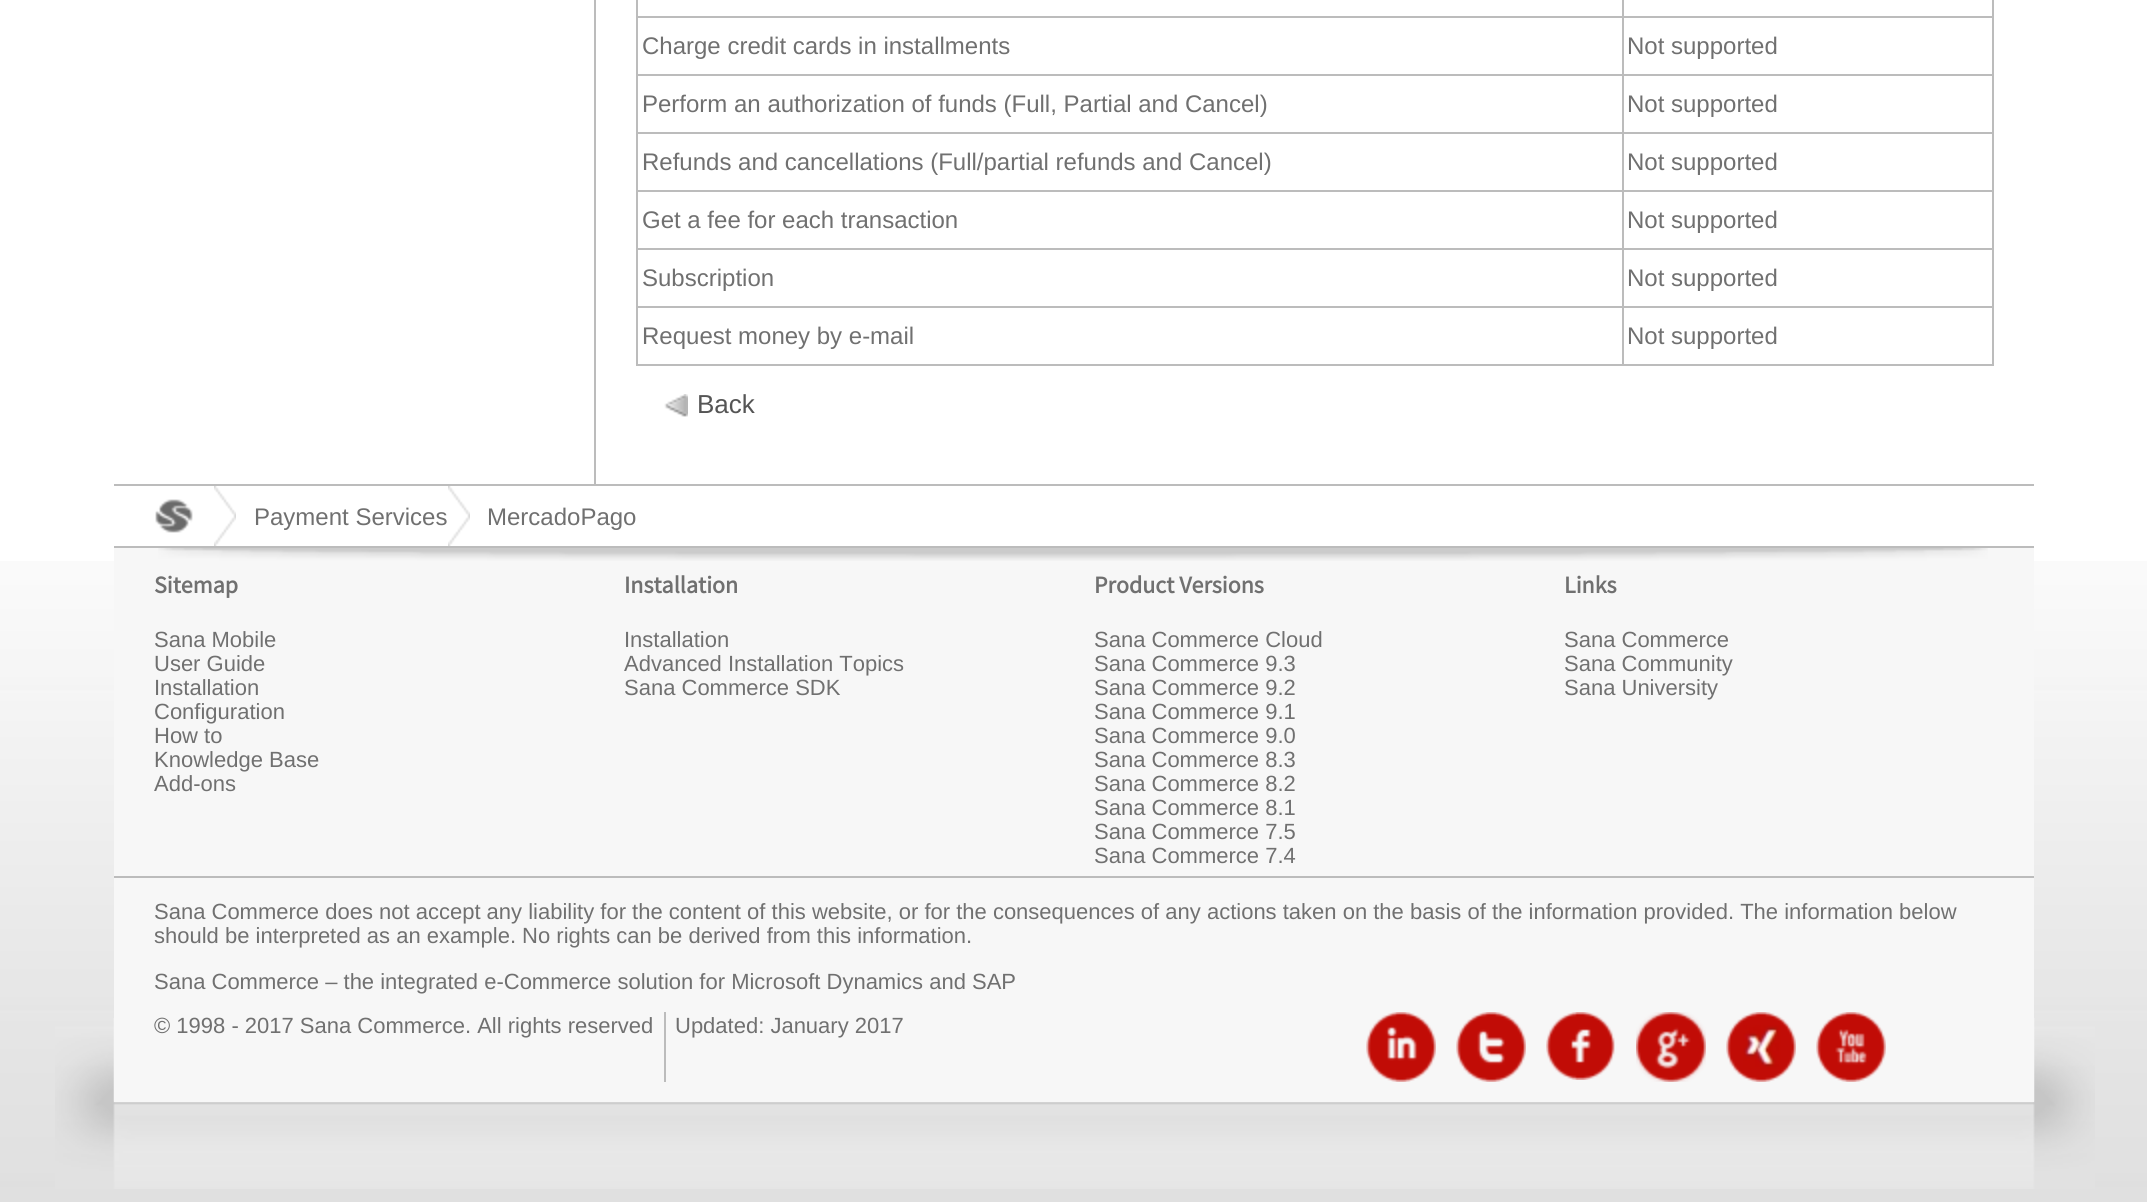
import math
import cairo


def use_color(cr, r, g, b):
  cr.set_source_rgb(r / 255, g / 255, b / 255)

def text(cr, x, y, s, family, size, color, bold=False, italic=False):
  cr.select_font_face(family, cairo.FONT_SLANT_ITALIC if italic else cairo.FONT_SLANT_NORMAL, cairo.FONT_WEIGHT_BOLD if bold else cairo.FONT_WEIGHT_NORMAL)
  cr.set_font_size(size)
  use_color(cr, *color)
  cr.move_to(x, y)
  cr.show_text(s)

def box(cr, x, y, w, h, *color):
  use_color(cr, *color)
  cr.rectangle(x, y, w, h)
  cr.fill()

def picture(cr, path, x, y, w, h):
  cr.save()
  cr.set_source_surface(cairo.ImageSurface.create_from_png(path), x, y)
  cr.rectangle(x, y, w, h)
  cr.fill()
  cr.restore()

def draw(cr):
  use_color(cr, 255, 255, 255)
  cr.paint()
  picture(cr, "img_01.png", 0, 561, 2147, 641)
  picture(cr, "img_02.png", 55, 1018, 2040, 171)
  box(cr, 594, 0, 2, 484, 188, 188, 188)
  box(cr, 1992, 0, 2, 366, 188, 188, 188)
  box(cr, 636, 364, 1358, 2, 188, 188, 188)
  box(cr, 636, 0, 2, 366, 188, 188, 188)
  box(cr, 1622, 16, 372, 2, 188, 188, 188)
  box(cr, 1622, 74, 372, 2, 188, 188, 188)
  box(cr, 1622, 132, 372, 2, 188, 188, 188)
  box(cr, 1622, 190, 372, 2, 188, 188, 188)
  box(cr, 1622, 248, 372, 2, 188, 188, 188)
  box(cr, 1622, 306, 372, 2, 188, 188, 188)
  box(cr, 1622, 306, 2, 60, 188, 188, 188)
  box(cr, 636, 306, 988, 2, 188, 188, 188)
  box(cr, 1622, 248, 2, 60, 188, 188, 188)
  box(cr, 636, 248, 988, 2, 188, 188, 188)
  box(cr, 1622, 190, 2, 60, 188, 188, 188)
  box(cr, 636, 190, 988, 2, 188, 188, 188)
  box(cr, 1622, 132, 2, 60, 188, 188, 188)
  box(cr, 636, 132, 988, 2, 188, 188, 188)
  box(cr, 1622, 74, 2, 60, 188, 188, 188)
  box(cr, 636, 74, 988, 2, 188, 188, 188)
  box(cr, 1622, 16, 2, 60, 188, 188, 188)
  box(cr, 636, 16, 988, 2, 188, 188, 188)
  box(cr, 1622, 0, 2, 18, 188, 188, 188)
  picture(cr, "img_03.png", 664, 394, 24, 23)
  box(cr, 114, 484, 1920, 2, 188, 188, 188)
  picture(cr, "img_04.png", 155, 499, 38, 34)
  picture(cr, "img_05.png", 214, 486, 22, 60)
  picture(cr, "img_05.png", 448, 486, 22, 60)
  box(cr, 114, 548, 1920, 328, 247, 247, 247)
  picture(cr, "img_06.png", 158, 548, 1830, 13)
  box(cr, 114, 546, 1920, 2, 188, 188, 188)
  box(cr, 114, 878, 1920, 224, 247, 247, 247)
  box(cr, 114, 876, 1920, 2, 188, 188, 188)
  box(cr, 664, 1012, 2, 70, 188, 188, 188)
  picture(cr, "img_07.png", 1366, 1012, 70, 70)
  picture(cr, "img_08.png", 1456, 1012, 70, 70)
  picture(cr, "img_09.png", 1546, 1012, 69, 68)
  picture(cr, "img_10.png", 1636, 1012, 70, 70)
  picture(cr, "img_11.png", 1726, 1012, 70, 70)
  picture(cr, "img_12.png", 1816, 1012, 70, 70)
  text(cr, 642, 54, "Charge credit cards in installments", "Liberation Sans", 24, (112, 112, 112))
  text(cr, 1627, 54, "Not supported", "Liberation Sans", 24, (112, 112, 112))
  text(cr, 642, 112, "Perform an authorization of funds (Full, Partial and Cancel)", "Liberation Sans", 24, (112, 112, 112))
  text(cr, 1627, 112, "Not supported", "Liberation Sans", 24, (112, 112, 112))
  text(cr, 642, 170, "Refunds and cancellations (Full/partial refunds and Cancel)", "Liberation Sans", 24, (112, 112, 112))
  text(cr, 1627, 170, "Not supported", "Liberation Sans", 24, (112, 112, 112))
  text(cr, 642, 228, "Get a fee for each transaction", "Liberation Sans", 24, (112, 112, 112))
  text(cr, 1627, 228, "Not supported", "Liberation Sans", 24, (112, 112, 112))
  text(cr, 642, 286, "Subscription", "Liberation Sans", 24, (112, 112, 112))
  text(cr, 1627, 286, "Not supported", "Liberation Sans", 24, (112, 112, 112))
  text(cr, 642, 344, "Request money by e-mail", "Liberation Sans", 24, (112, 112, 112))
  text(cr, 1627, 344, "Not supported", "Liberation Sans", 24, (112, 112, 112))
  text(cr, 697, 413, "Back", "Liberation Sans", 26, (85, 85, 85))
  text(cr, 254, 525, "Payment Services", "Liberation Sans", 24, (112, 112, 112))
  text(cr, 487, 525, "MercadoPago", "Liberation Sans", 24, (112, 112, 112))
  text(cr, 154, 593, "Sitemap", "Source Sans Pro", 24, (112, 112, 112), bold=True)
  text(cr, 154, 647, "Sana Mobile", "Liberation Sans", 22, (112, 112, 112))
  text(cr, 154, 671, "User Guide", "Liberation Sans", 22, (112, 112, 112))
  text(cr, 154, 695, "Installation", "Liberation Sans", 22, (112, 112, 112))
  text(cr, 154, 719, "Configuration", "Liberation Sans", 22, (112, 112, 112))
  text(cr, 154, 743, "How to", "Liberation Sans", 22, (112, 112, 112))
  text(cr, 154, 767, "Knowledge Base", "Liberation Sans", 22, (112, 112, 112))
  text(cr, 154, 791, "Add-ons", "Liberation Sans", 22, (112, 112, 112))
  text(cr, 624, 593, "Installation", "Source Sans Pro", 24, (112, 112, 112), bold=True)
  text(cr, 624, 647, "Installation", "Liberation Sans", 22, (112, 112, 112))
  text(cr, 624, 671, "Advanced Installation Topics", "Liberation Sans", 22, (112, 112, 112))
  text(cr, 624, 695, "Sana Commerce SDK", "Liberation Sans", 22, (112, 112, 112))
  text(cr, 1094, 593, "Product Versions", "Source Sans Pro", 24, (112, 112, 112), bold=True)
  text(cr, 1094, 647, "Sana Commerce Cloud", "Liberation Sans", 22, (112, 112, 112))
  text(cr, 1094, 671, "Sana Commerce 9.3", "Liberation Sans", 22, (112, 112, 112))
  text(cr, 1094, 695, "Sana Commerce 9.2", "Liberation Sans", 22, (112, 112, 112))
  text(cr, 1094, 719, "Sana Commerce 9.1", "Liberation Sans", 22, (112, 112, 112))
  text(cr, 1094, 743, "Sana Commerce 9.0", "Liberation Sans", 22, (112, 112, 112))
  text(cr, 1094, 767, "Sana Commerce 8.3", "Liberation Sans", 22, (112, 112, 112))
  text(cr, 1094, 791, "Sana Commerce 8.2", "Liberation Sans", 22, (112, 112, 112))
  text(cr, 1094, 815, "Sana Commerce 8.1", "Liberation Sans", 22, (112, 112, 112))
  text(cr, 1094, 839, "Sana Commerce 7.5", "Liberation Sans", 22, (112, 112, 112))
  text(cr, 1094, 863, "Sana Commerce 7.4", "Liberation Sans", 22, (112, 112, 112))
  text(cr, 1564, 593, "Links", "Source Sans Pro", 24, (112, 112, 112), bold=True)
  text(cr, 1564, 647, "Sana Commerce", "Liberation Sans", 22, (112, 112, 112))
  text(cr, 1564, 671, "Sana Community", "Liberation Sans", 22, (112, 112, 112))
  text(cr, 1564, 695, "Sana University", "Liberation Sans", 22, (112, 112, 112))
  text(cr, 154, 919, "Sana Commerce does not accept any liability for the content of this website, or for the consequences of any actions taken on the basis of the information provided. The information below", "Liberation Sans", 22, (112, 112, 112))
  text(cr, 154, 943, "should be interpreted as an example. No rights can be derived from this information.", "Liberation Sans", 22, (112, 112, 112))
  text(cr, 154, 989, "Sana Commerce – the integrated e-Commerce solution for Microsoft Dynamics and SAP", "Liberation Sans", 22, (112, 112, 112))
  text(cr, 154, 1033, "© 1998 - 2017 Sana Commerce. All rights reserved", "Liberation Sans", 22, (112, 112, 112))
  text(cr, 675, 1033, "Updated: January 2017", "Liberation Sans", 22, (112, 112, 112))


surface = cairo.ImageSurface(cairo.FORMAT_RGB24, 2147, 1202)
cr = cairo.Context(surface)
options = cairo.FontOptions()
options.set_hint_metrics(cairo.HINT_METRICS_OFF)
options.set_hint_style(cairo.HINT_STYLE_NONE)
cr.set_font_options(options)
cr.set_miter_limit(4)
draw(cr)
surface.write_to_png("out.png")
